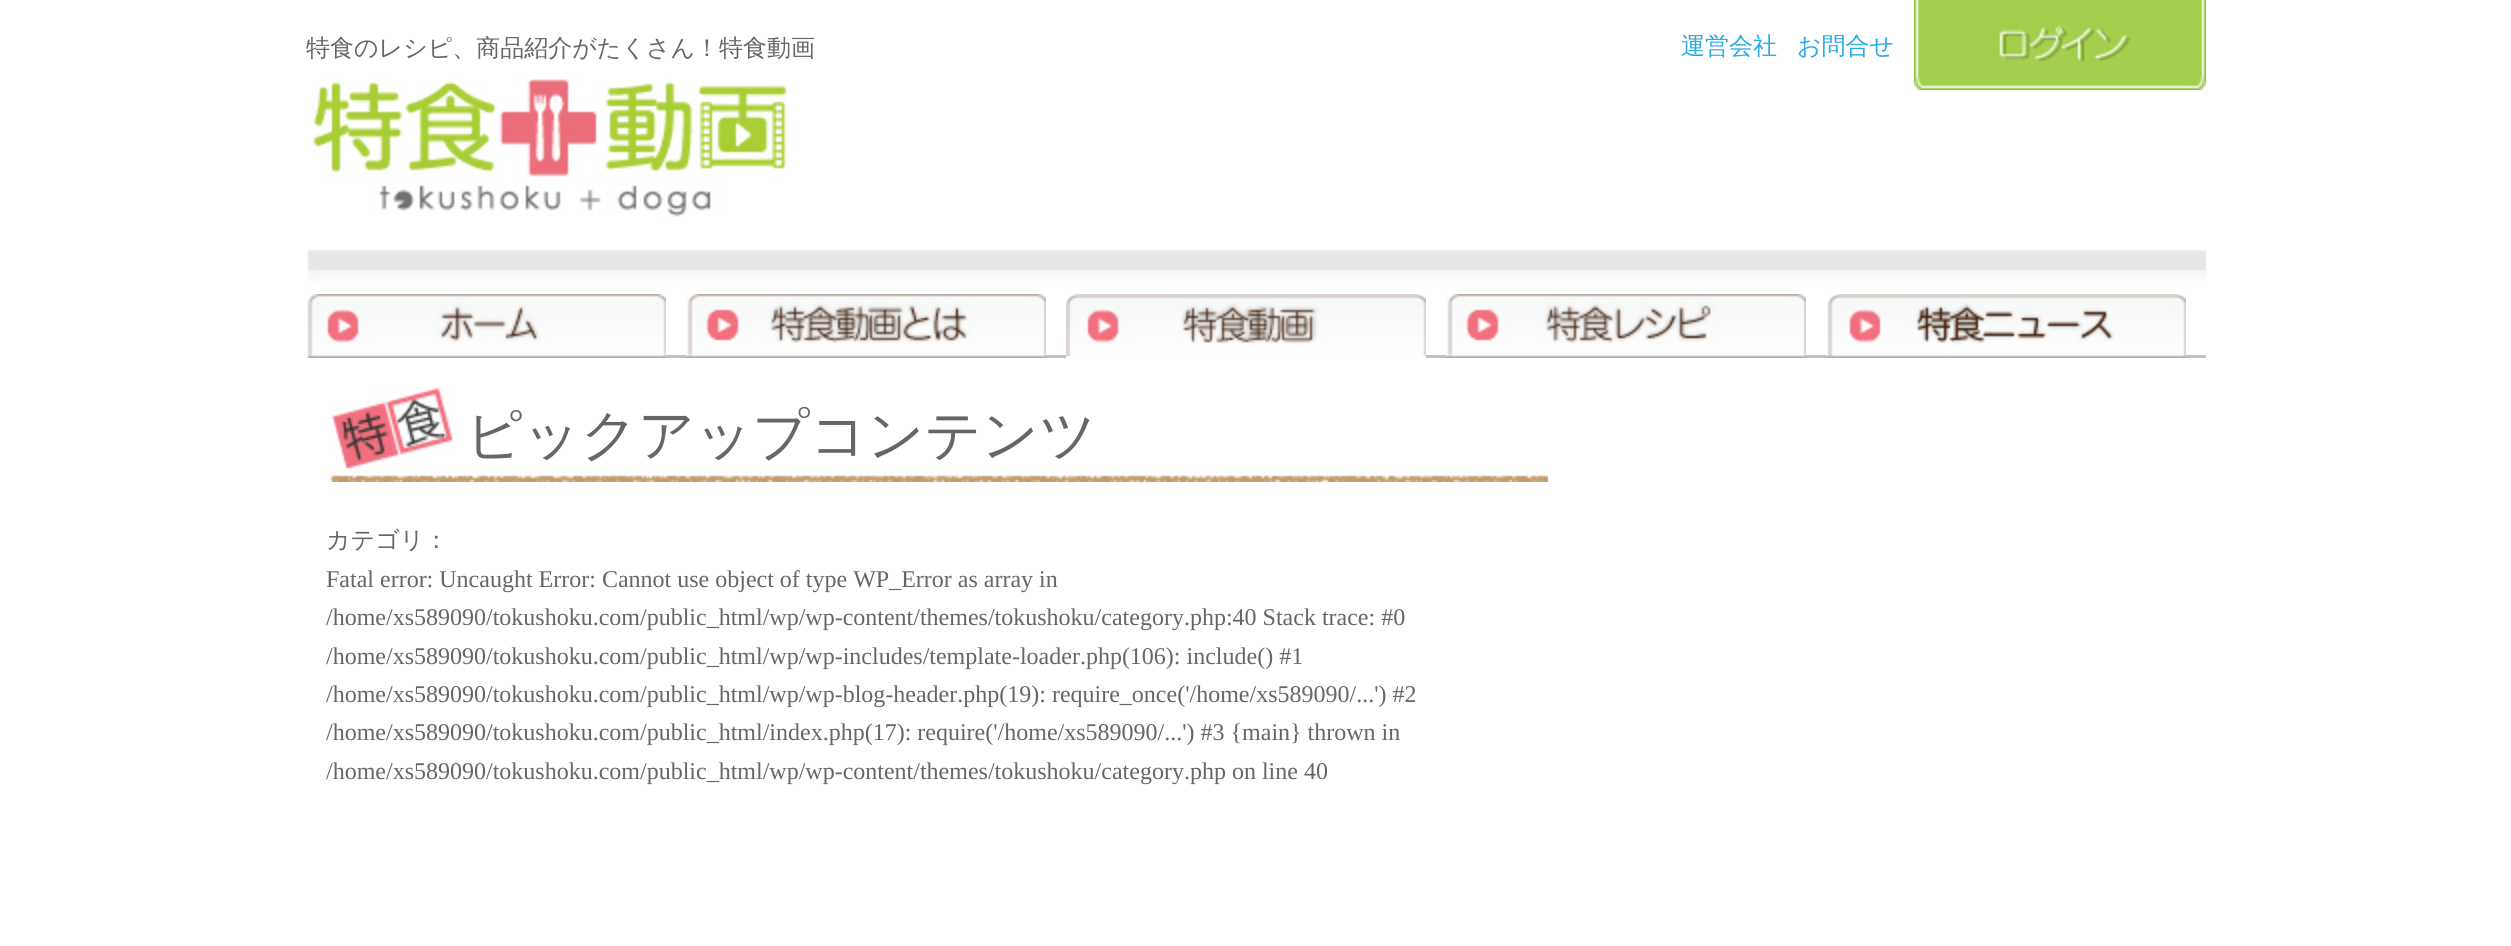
import math
import cairo


def use_color(cr, r, g, b):
  cr.set_source_rgb(r / 255, g / 255, b / 255)

def text(cr, x, y, s, family, size, color, bold=False, italic=False):
  cr.select_font_face(family, cairo.FONT_SLANT_ITALIC if italic else cairo.FONT_SLANT_NORMAL, cairo.FONT_WEIGHT_BOLD if bold else cairo.FONT_WEIGHT_NORMAL)
  cr.set_font_size(size)
  use_color(cr, *color)
  cr.move_to(x, y)
  cr.show_text(s)

def box(cr, x, y, w, h, *color):
  use_color(cr, *color)
  cr.rectangle(x, y, w, h)
  cr.fill()

def picture(cr, path, x, y, w, h):
  cr.save()
  cr.set_source_surface(cairo.ImageSurface.create_from_png(path), x, y)
  cr.rectangle(x, y, w, h)
  cr.fill()
  cr.restore()

def draw(cr):
  use_color(cr, 255, 255, 255)
  cr.paint()
  picture(cr, "img_01.png", 313, 79, 474, 138)
  picture(cr, "img_02.png", 1914, 0, 292, 90)
  picture(cr, "img_03.png", 307, 249, 1899, 32)
  picture(cr, "img_04.png", 307, 294, 359, 64)
  box(cr, 666, 355, 20, 3, 201, 191, 184)
  picture(cr, "img_05.png", 686, 294, 360, 64)
  box(cr, 1046, 355, 20, 3, 201, 191, 184)
  picture(cr, "img_06.png", 1066, 294, 360, 62)
  box(cr, 1426, 355, 20, 3, 201, 191, 184)
  picture(cr, "img_07.png", 1446, 294, 360, 64)
  box(cr, 1806, 355, 20, 3, 201, 191, 184)
  picture(cr, "img_08.png", 1826, 294, 360, 64)
  box(cr, 2186, 355, 20, 3, 201, 191, 184)
  picture(cr, "img_09.png", 329, 387, 1219, 95)
  text(cr, 306, 56, "特食のレシピ、商品紹介がたくさん！特食動画", "WenQuanYi Zen Hei Medium", 24, (102, 102, 102))
  text(cr, 1681, 54, "運営会社", "WenQuanYi Zen Hei Medium", 24, (41, 170, 227))
  text(cr, 1797, 54, "お問合せ", "WenQuanYi Zen Hei Medium", 24, (41, 170, 227))
  text(cr, 466, 454, "ピックアップコンテンツ", "WenQuanYi Zen Hei Medium", 56, (102, 102, 102))
  text(cr, 326, 548, "カテゴリ：", "WenQuanYi Zen Hei Medium", 24, (102, 102, 102))
  text(cr, 326, 587, "Fatal error: Uncaught Error: Cannot use object of type WP_Error as array in", "Liberation Serif", 24, (102, 102, 102))
  text(cr, 326, 625, "/home/xs589090/tokushoku.com/public_html/wp/wp-content/themes/tokushoku/category.php:40 Stack trace: #0", "Liberation Serif", 24, (102, 102, 102))
  text(cr, 326, 664, "/home/xs589090/tokushoku.com/public_html/wp/wp-includes/template-loader.php(106): include() #1", "Liberation Serif", 24, (102, 102, 102))
  text(cr, 326, 702, "/home/xs589090/tokushoku.com/public_html/wp/wp-blog-header.php(19): require_once('/home/xs589090/...') #2", "Liberation Serif", 24, (102, 102, 102))
  text(cr, 326, 740, "/home/xs589090/tokushoku.com/public_html/index.php(17): require('/home/xs589090/...') #3 {main} thrown in", "Liberation Serif", 24, (102, 102, 102))
  text(cr, 326, 779, "/home/xs589090/tokushoku.com/public_html/wp/wp-content/themes/tokushoku/category.php on line 40", "Liberation Serif", 24, (102, 102, 102))


surface = cairo.ImageSurface(cairo.FORMAT_RGB24, 2511, 946)
cr = cairo.Context(surface)
options = cairo.FontOptions()
options.set_hint_metrics(cairo.HINT_METRICS_OFF)
options.set_hint_style(cairo.HINT_STYLE_NONE)
cr.set_font_options(options)
cr.set_miter_limit(4)
draw(cr)
surface.write_to_png("out.png")
